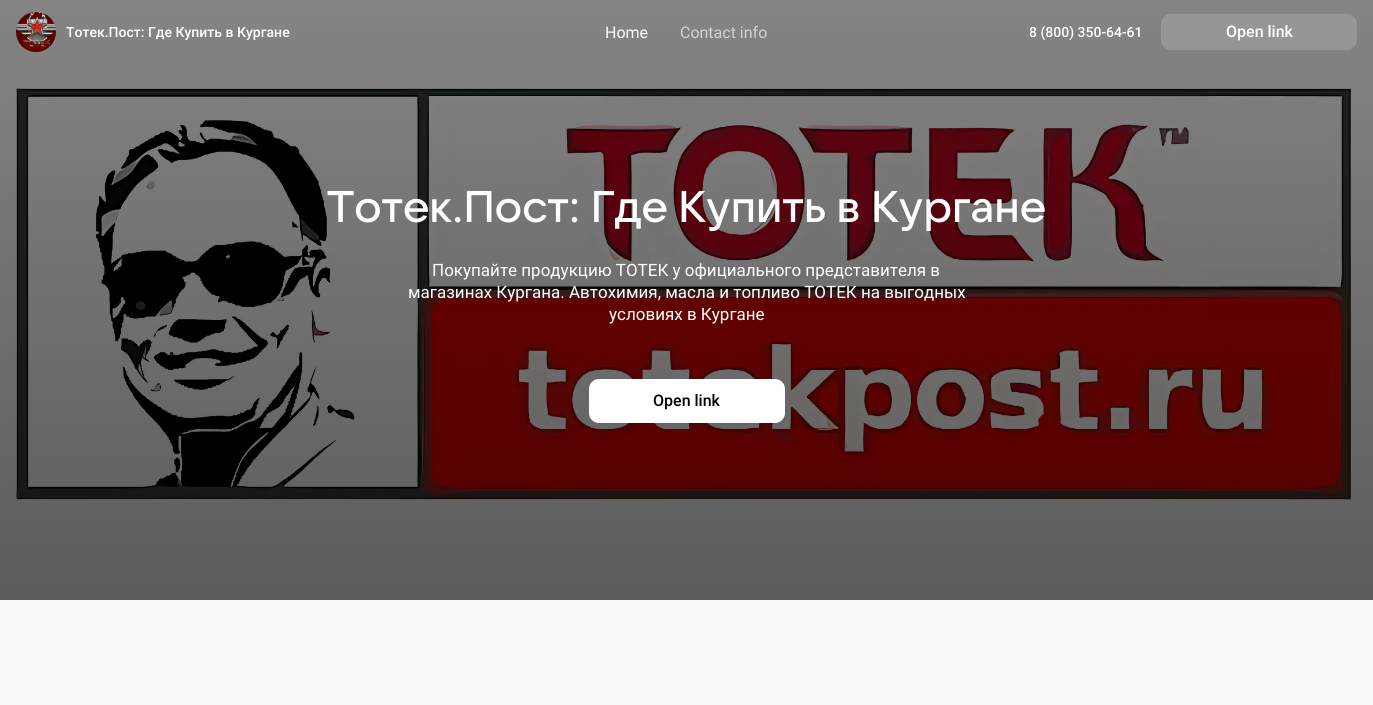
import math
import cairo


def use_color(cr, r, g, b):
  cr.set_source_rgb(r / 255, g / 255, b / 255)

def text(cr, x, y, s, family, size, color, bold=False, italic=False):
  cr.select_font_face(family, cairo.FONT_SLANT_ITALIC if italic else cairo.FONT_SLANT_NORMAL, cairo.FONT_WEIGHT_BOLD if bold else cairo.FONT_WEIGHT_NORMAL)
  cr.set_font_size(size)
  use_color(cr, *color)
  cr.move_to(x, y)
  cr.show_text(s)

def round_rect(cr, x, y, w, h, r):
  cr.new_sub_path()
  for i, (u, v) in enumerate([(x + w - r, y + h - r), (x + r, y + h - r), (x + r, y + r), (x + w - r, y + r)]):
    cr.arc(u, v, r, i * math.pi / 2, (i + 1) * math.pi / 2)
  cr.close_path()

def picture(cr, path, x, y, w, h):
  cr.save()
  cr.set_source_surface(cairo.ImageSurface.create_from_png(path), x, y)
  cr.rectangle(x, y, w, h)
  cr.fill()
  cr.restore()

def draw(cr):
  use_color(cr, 249, 249, 249)
  cr.paint()
  picture(cr, "img_01.png", 0, 0, 1373, 600)
  picture(cr, "img_02.png", 16, 12, 40, 40)
  cr.set_source_rgba(1, 1, 1, 0.16)
  round_rect(cr, 1161, 14, 196, 36, 10)
  cr.fill()
  use_color(cr, 255, 255, 255)
  round_rect(cr, 589, 379, 196, 44, 10)
  cr.fill()
  text(cr, 66, 37, "Тотек.Пост: Где Купить в Кургане", "Roboto Medium", 14, (255, 255, 255))
  text(cr, 605, 38, "Home", "Roboto", 16, (255, 255, 255))
  text(cr, 680, 38, "Contact info", "Roboto", 16, (210, 210, 210))
  text(cr, 1029, 37, "8 (800) 350-64-61", "Roboto Medium", 14, (255, 255, 255))
  text(cr, 1226, 37, "Open link", "Roboto Medium", 16, (255, 255, 255))
  text(cr, 327, 222, "Тотек.Пост: Где Купить в Кургане", "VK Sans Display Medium", 44, (255, 255, 255))
  text(cr, 432, 276, "Покупайте продукцию ТОТЕК у официального представителя в", "Roboto", 17, (255, 255, 255))
  text(cr, 408, 298, "магазинах Кургана. Автохимия, масла и топливо ТОТЕК на выгодных", "Roboto", 17, (255, 255, 255))
  text(cr, 609, 320, "условиях в Кургане", "Roboto", 17, (255, 255, 255))
  text(cr, 653, 406, "Open link", "Roboto Medium", 16, (0, 0, 0))


surface = cairo.ImageSurface(cairo.FORMAT_RGB24, 1373, 705)
cr = cairo.Context(surface)
options = cairo.FontOptions()
options.set_hint_metrics(cairo.HINT_METRICS_OFF)
options.set_hint_style(cairo.HINT_STYLE_NONE)
cr.set_font_options(options)
cr.set_miter_limit(4)
draw(cr)
surface.write_to_png("out.png")
